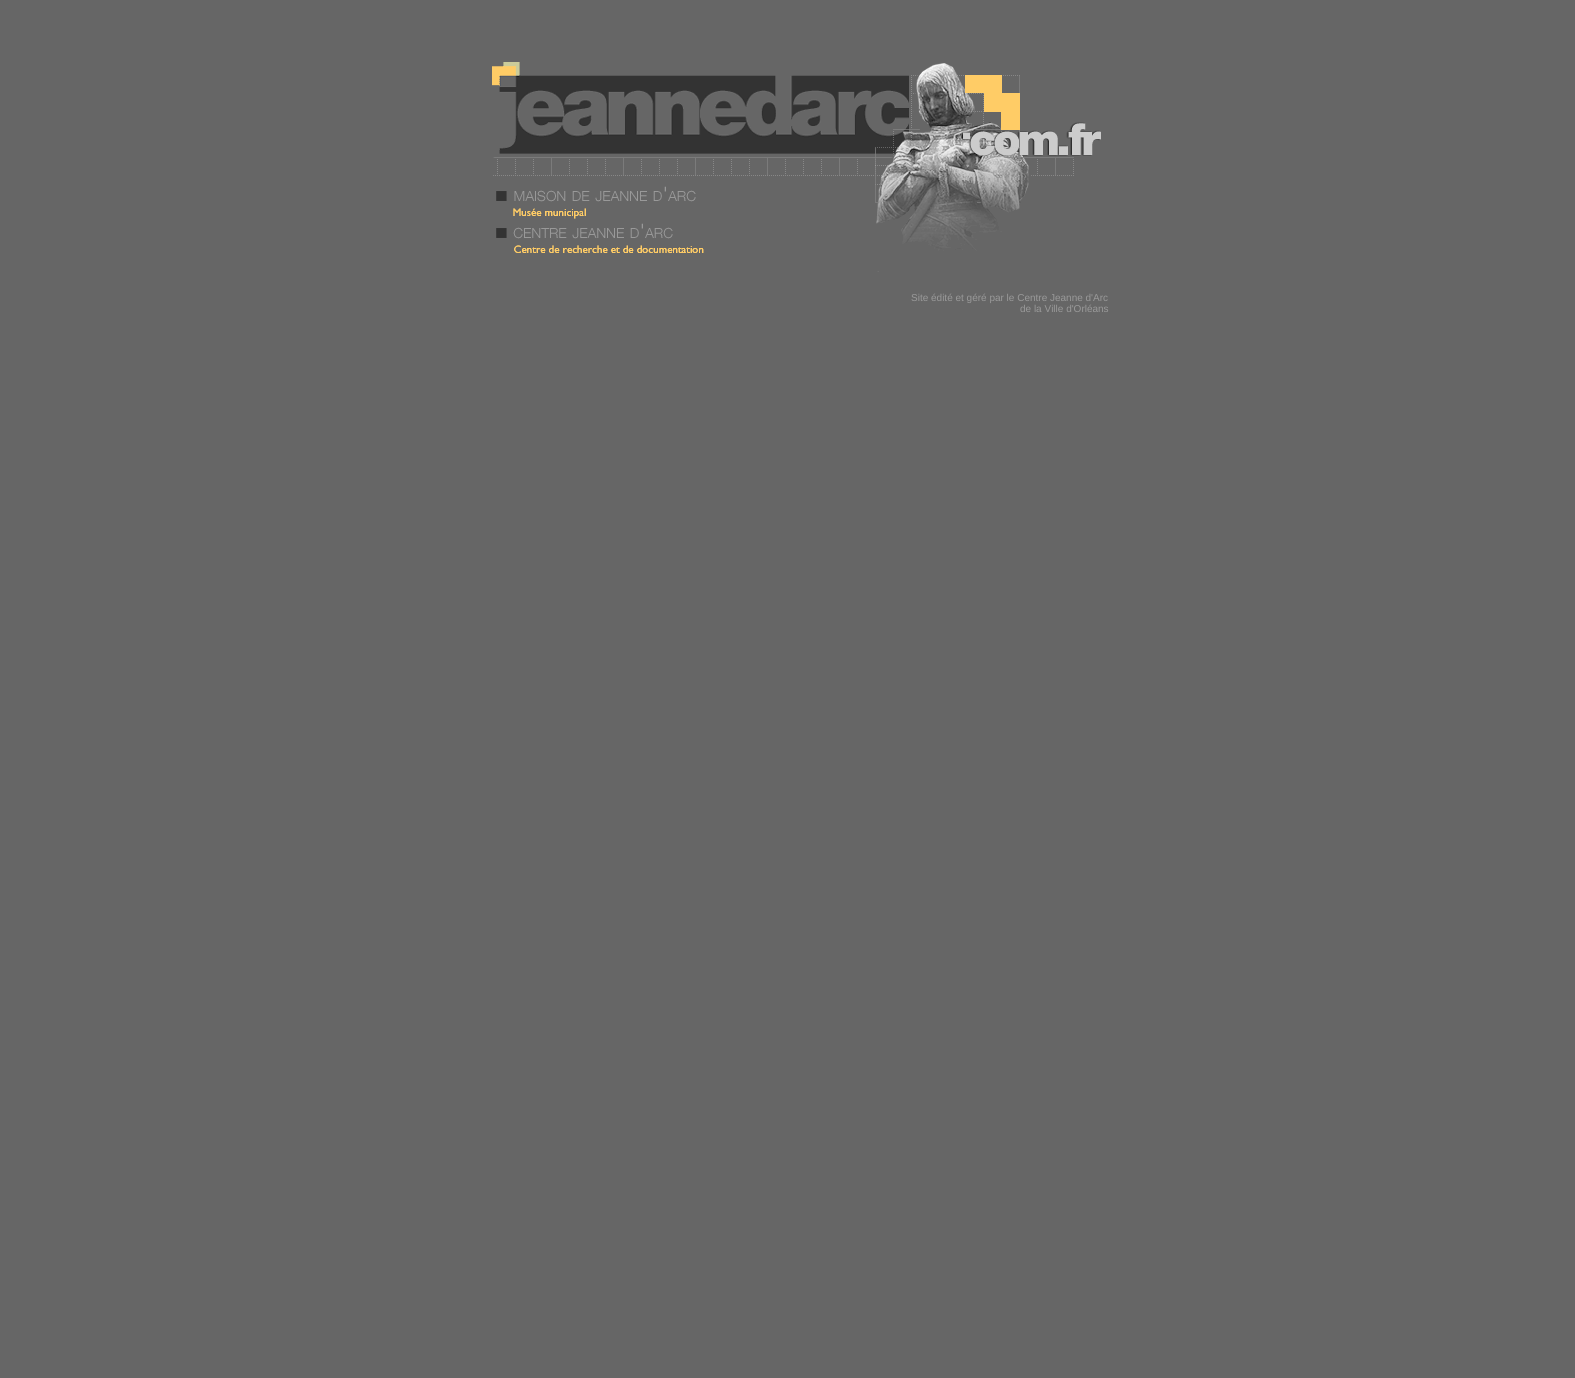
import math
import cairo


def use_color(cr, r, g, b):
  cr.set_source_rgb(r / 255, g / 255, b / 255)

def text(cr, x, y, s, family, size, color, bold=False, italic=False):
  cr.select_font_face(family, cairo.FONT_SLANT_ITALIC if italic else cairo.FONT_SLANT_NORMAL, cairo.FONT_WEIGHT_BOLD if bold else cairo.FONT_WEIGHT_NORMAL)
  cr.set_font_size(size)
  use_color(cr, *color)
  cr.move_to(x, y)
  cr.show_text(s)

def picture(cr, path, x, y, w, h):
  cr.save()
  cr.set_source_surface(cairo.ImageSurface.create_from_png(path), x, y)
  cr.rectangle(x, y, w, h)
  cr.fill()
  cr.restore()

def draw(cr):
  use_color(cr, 102, 102, 102)
  cr.paint()
  picture(cr, "img_01.png", 492, 62, 609, 117)
  picture(cr, "img_02.png", 496, 186, 200, 16)
  picture(cr, "img_03.png", 513, 208, 73, 11)
  picture(cr, "img_04.png", 496, 223, 177, 16)
  picture(cr, "img_05.png", 514, 245, 190, 8)
  picture(cr, "img_06.png", 875, 179, 154, 93)
  text(cr, 911, 301, "Site édité et géré par le Centre Jeanne d'Arc", "Liberation Sans", 10, (153, 153, 153))
  text(cr, 1020, 312, "de la Ville d'Orléans", "Liberation Sans", 10, (153, 153, 153))


surface = cairo.ImageSurface(cairo.FORMAT_RGB24, 1575, 1378)
cr = cairo.Context(surface)
options = cairo.FontOptions()
options.set_hint_metrics(cairo.HINT_METRICS_OFF)
options.set_hint_style(cairo.HINT_STYLE_NONE)
cr.set_font_options(options)
cr.set_miter_limit(4)
draw(cr)
surface.write_to_png("out.png")
